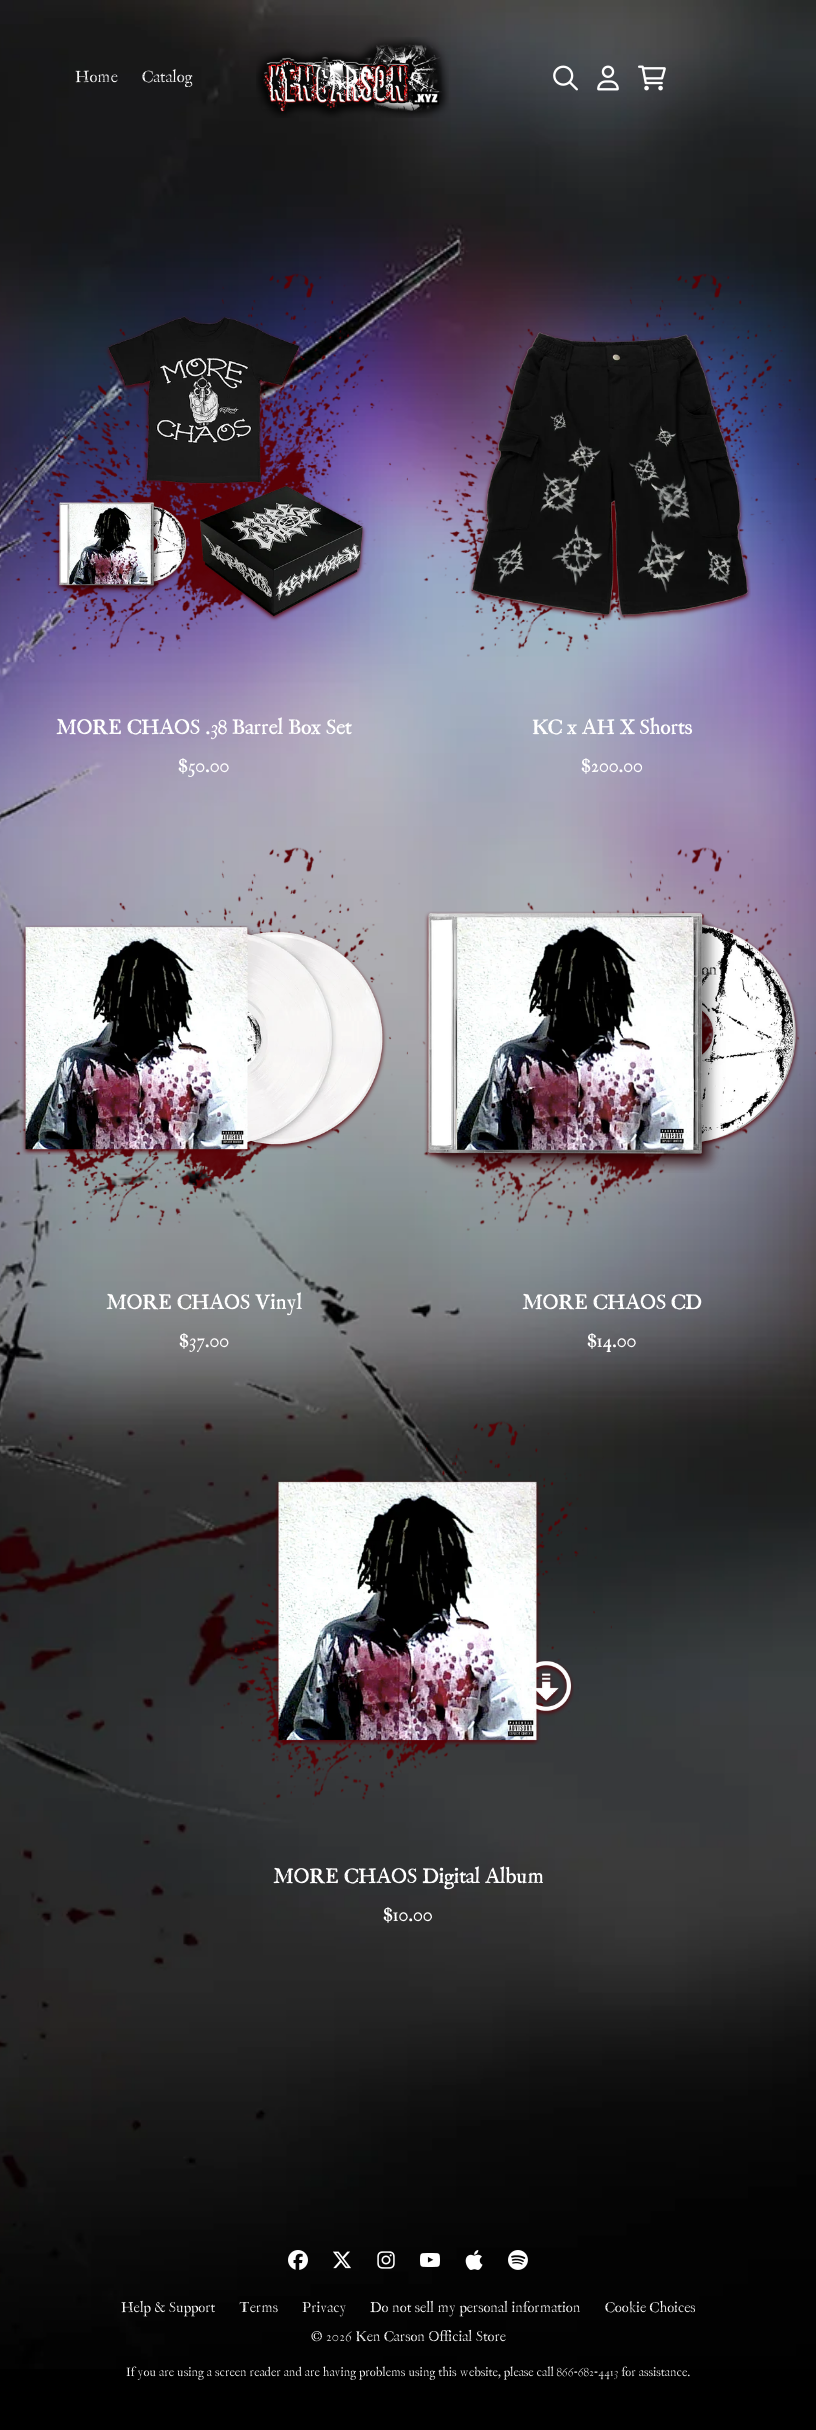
import math
import cairo


def use_color(cr, r, g, b):
  cr.set_source_rgb(r / 255, g / 255, b / 255)

def text(cr, x, y, s, family, size, color, bold=False, italic=False):
  cr.select_font_face(family, cairo.FONT_SLANT_ITALIC if italic else cairo.FONT_SLANT_NORMAL, cairo.FONT_WEIGHT_BOLD if bold else cairo.FONT_WEIGHT_NORMAL)
  cr.set_font_size(size)
  use_color(cr, *color)
  cr.move_to(x, y)
  cr.show_text(s)

def picture(cr, path, x, y, w, h):
  cr.save()
  cr.set_source_surface(cairo.ImageSurface.create_from_png(path), x, y)
  cr.rectangle(x, y, w, h)
  cr.fill()
  cr.restore()

def draw(cr):
  use_color(cr, 0, 0, 0)
  cr.paint()
  picture(cr, "img_01.png", 0, 0, 816, 2369)
  picture(cr, "img_02.png", 256, 37, 193, 81)
  picture(cr, "img_03.png", 553, 65, 25, 26)
  picture(cr, "img_04.png", 597, 65, 22, 26)
  picture(cr, "img_05.png", 638, 65, 28, 26)
  picture(cr, "img_06.png", 14, 273, 394, 384)
  picture(cr, "img_07.png", 55, 316, 312, 306)
  picture(cr, "img_08.png", 422, 273, 394, 384)
  picture(cr, "img_09.png", 469, 332, 282, 289)
  picture(cr, "img_10.png", 14, 847, 394, 384)
  picture(cr, "img_11.png", 21, 925, 366, 230)
  picture(cr, "img_12.png", 422, 847, 394, 384)
  picture(cr, "img_13.png", 424, 911, 376, 262)
  picture(cr, "img_14.png", 219, 1421, 393, 384)
  picture(cr, "img_15.png", 275, 1480, 299, 265)
  picture(cr, "img_16.png", 288, 2250, 20, 20)
  picture(cr, "img_17.png", 333, 2251, 18, 18)
  picture(cr, "img_18.png", 377, 2251, 18, 18)
  picture(cr, "img_19.png", 420, 2253, 20, 14)
  picture(cr, "img_20.png", 465, 2250, 18, 20)
  picture(cr, "img_21.png", 508, 2250, 20, 20)
  text(cr, 75, 82, "Home", "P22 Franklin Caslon", 16, (255, 255, 255))
  text(cr, 142, 82, "Catalog", "P22 Franklin Caslon", 16, (255, 255, 255))
  text(cr, 56, 734, "MORE CHAOS .38 Barrel Box Set", "P22 Franklin Caslon", 20, (255, 255, 255), bold=True)
  text(cr, 178, 772, "$50.00", "P22 Franklin Caslon", 19, (255, 255, 255), bold=True)
  text(cr, 532, 734, "KC x AH X Shorts", "P22 Franklin Caslon", 20, (255, 255, 255), bold=True)
  text(cr, 581, 772, "$200.00", "P22 Franklin Caslon", 19, (255, 255, 255), bold=True)
  text(cr, 106, 1309, "MORE CHAOS Vinyl", "P22 Franklin Caslon", 20, (255, 255, 255), bold=True)
  text(cr, 179, 1347, "$37.00", "P22 Franklin Caslon", 19, (255, 255, 255), bold=True)
  text(cr, 522, 1309, "MORE CHAOS CD", "P22 Franklin Caslon", 20, (255, 255, 255), bold=True)
  text(cr, 587, 1347, "$14.00", "P22 Franklin Caslon", 19, (255, 255, 255), bold=True)
  text(cr, 273, 1883, "MORE CHAOS Digital Album", "P22 Franklin Caslon", 20, (255, 255, 255), bold=True)
  text(cr, 383, 1921, "$10.00", "P22 Franklin Caslon", 19, (255, 255, 255), bold=True)
  text(cr, 121, 2312, "Help & Support", "P22 Franklin Caslon", 14, (255, 255, 255))
  text(cr, 239, 2312, "Terms", "P22 Franklin Caslon", 14, (255, 255, 255))
  text(cr, 302, 2312, "Privacy", "P22 Franklin Caslon", 14, (255, 255, 255))
  text(cr, 370, 2312, "Do not sell my personal information", "P22 Franklin Caslon", 14, (255, 255, 255))
  text(cr, 605, 2312, "Cookie Choices", "P22 Franklin Caslon", 14, (255, 255, 255))
  text(cr, 311, 2341, "© 2026 Ken Carson Official Store", "P22 Franklin Caslon", 14, (255, 255, 255))
  text(cr, 126, 2376, "If you are using a screen reader and are having problems using this website, please call 866-682-4413 for assistance.", "P22 Franklin Caslon", 12, (255, 255, 255))


surface = cairo.ImageSurface(cairo.FORMAT_RGB24, 816, 2430)
cr = cairo.Context(surface)
options = cairo.FontOptions()
options.set_hint_metrics(cairo.HINT_METRICS_OFF)
options.set_hint_style(cairo.HINT_STYLE_NONE)
cr.set_font_options(options)
cr.set_miter_limit(4)
draw(cr)
surface.write_to_png("out.png")
